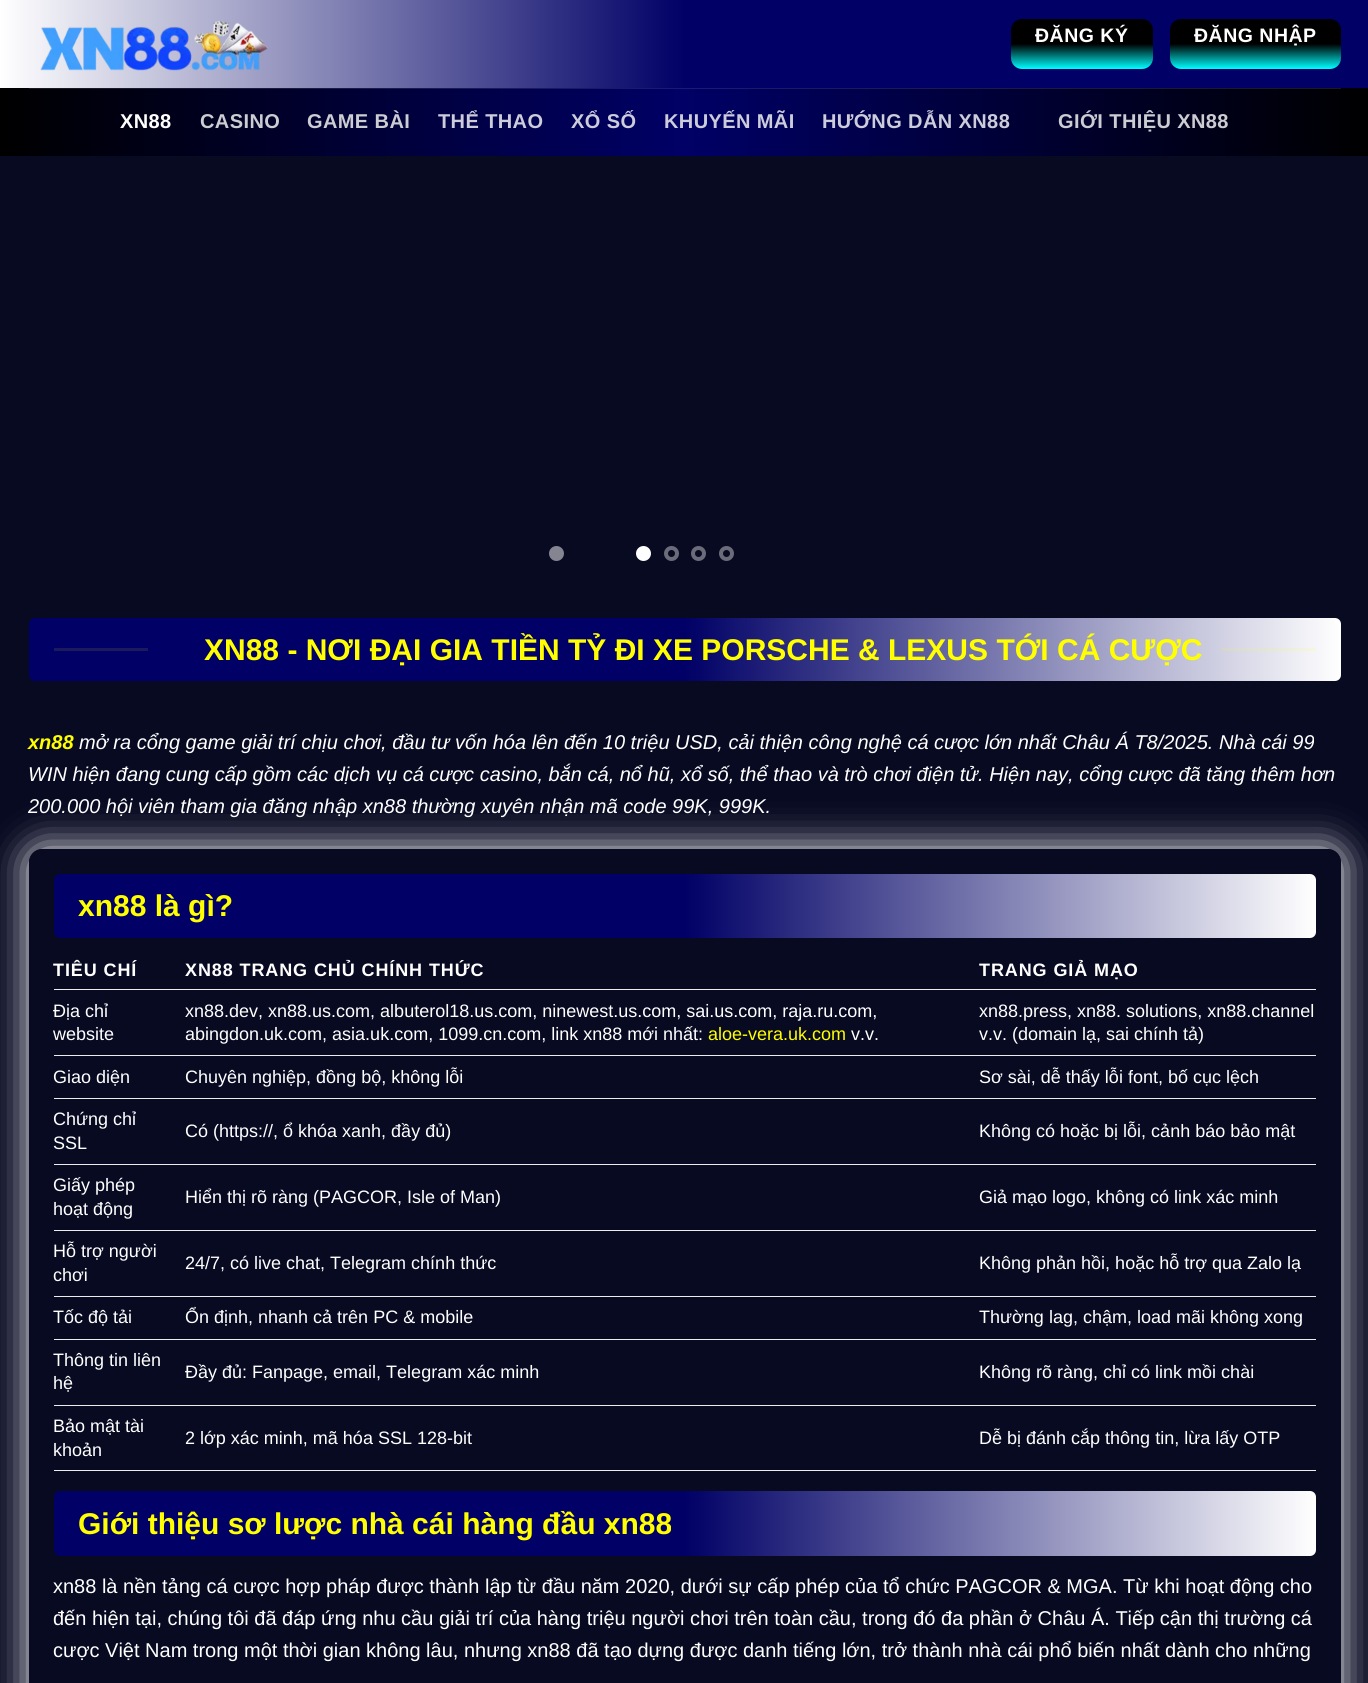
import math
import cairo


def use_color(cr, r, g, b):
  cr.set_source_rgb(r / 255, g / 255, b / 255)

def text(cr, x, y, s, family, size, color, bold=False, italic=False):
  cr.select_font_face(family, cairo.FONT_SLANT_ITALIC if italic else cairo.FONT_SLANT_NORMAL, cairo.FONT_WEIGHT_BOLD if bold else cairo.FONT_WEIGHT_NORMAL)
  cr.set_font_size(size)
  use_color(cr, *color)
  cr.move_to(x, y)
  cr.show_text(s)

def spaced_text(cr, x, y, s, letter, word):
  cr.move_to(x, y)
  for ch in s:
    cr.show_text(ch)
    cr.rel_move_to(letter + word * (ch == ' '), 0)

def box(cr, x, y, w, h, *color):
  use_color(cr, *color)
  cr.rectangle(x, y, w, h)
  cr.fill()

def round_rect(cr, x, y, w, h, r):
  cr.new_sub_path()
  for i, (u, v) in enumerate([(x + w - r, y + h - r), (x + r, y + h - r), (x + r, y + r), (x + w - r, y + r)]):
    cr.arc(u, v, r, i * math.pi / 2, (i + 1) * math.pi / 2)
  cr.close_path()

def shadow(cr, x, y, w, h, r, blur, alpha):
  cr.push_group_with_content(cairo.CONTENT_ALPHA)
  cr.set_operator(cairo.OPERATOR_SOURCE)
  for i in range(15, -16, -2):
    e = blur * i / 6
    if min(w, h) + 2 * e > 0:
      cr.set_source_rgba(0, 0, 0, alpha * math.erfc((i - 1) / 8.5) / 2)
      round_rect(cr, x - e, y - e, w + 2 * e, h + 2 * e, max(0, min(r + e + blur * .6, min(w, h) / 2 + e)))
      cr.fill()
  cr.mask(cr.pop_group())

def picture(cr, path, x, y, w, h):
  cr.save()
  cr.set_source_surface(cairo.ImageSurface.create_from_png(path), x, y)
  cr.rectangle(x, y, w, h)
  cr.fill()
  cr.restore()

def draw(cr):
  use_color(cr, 8, 10, 34)
  cr.paint()
  gradient = cairo.LinearGradient(0, 44, 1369, 44)
  gradient.add_color_stop_rgba(0, 1, 1, 1, 1)
  gradient.add_color_stop_rgba(0.5, 0, 0, 0.4, 1)
  gradient.add_color_stop_rgba(1, 0, 0, 0.4, 1)
  cr.set_source(gradient)
  cr.rectangle(0, 0, 1368, 88)
  cr.fill()
  picture(cr, "img_01.png", 40, 20, 228, 51)
  gradient = cairo.LinearGradient(1082, 19, 1082, 69)
  gradient.add_color_stop_rgba(0.5, 0, 0, 0, 1)
  gradient.add_color_stop_rgba(1, 0, 1, 1, 1)
  cr.set_source(gradient)
  round_rect(cr, 1011, 19, 142, 50, 11)
  cr.fill()
  gradient = cairo.LinearGradient(1256, 19, 1256, 69)
  gradient.add_color_stop_rgba(0.5, 0, 0, 0, 1)
  gradient.add_color_stop_rgba(1, 0, 1, 1, 1)
  cr.set_source(gradient)
  round_rect(cr, 1170, 19, 171, 50, 11)
  cr.fill()
  gradient = cairo.LinearGradient(0, 122, 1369, 122)
  gradient.add_color_stop_rgba(0, 0, 0, 0, 1)
  gradient.add_color_stop_rgba(0.5, 0, 0, 0.4, 1)
  gradient.add_color_stop_rgba(1, 0, 0, 0, 1)
  cr.set_source(gradient)
  cr.rectangle(0, 88, 1368, 68)
  cr.fill()
  gradient = cairo.LinearGradient(0, 122, 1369, 122)
  gradient.add_color_stop_rgba(0, 0.102, 0.102, 0.102, 1)
  gradient.add_color_stop_rgba(0.5, 0.102, 0.102, 0.459, 1)
  gradient.add_color_stop_rgba(1, 0.102, 0.102, 0.102, 1)
  cr.set_source(gradient)
  cr.rectangle(29, 88, 1312, 1)
  cr.fill()
  use_color(cr, 132, 133, 145)
  cr.arc(556.5, 553.5, 5.5, 0, 2 * math.pi)
  cr.fill_preserve()
  cr.set_line_width(4)
  cr.stroke()
  use_color(cr, 255, 255, 255)
  cr.arc(643.5, 553.5, 5.5, 0, 2 * math.pi)
  cr.fill_preserve()
  cr.stroke()
  cr.arc(671.5, 553.5, 5.5, 0, 2 * math.pi)
  use_color(cr, 107, 108, 122)
  cr.stroke()
  cr.arc(698.5, 553.5, 5.5, 0, 2 * math.pi)
  cr.stroke()
  cr.arc(726.5, 553.5, 5.5, 0, 2 * math.pi)
  cr.stroke()
  gradient = cairo.LinearGradient(29, 649, 1341, 649)
  gradient.add_color_stop_rgba(0, 0, 0, 0.4, 1)
  gradient.add_color_stop_rgba(0.5, 0, 0, 0.4, 1)
  gradient.add_color_stop_rgba(1, 1, 1, 1, 1)
  cr.set_source(gradient)
  round_rect(cr, 29, 618, 1312, 63, 6)
  cr.fill()
  gradient = cairo.LinearGradient(29, 649, 1341, 649)
  gradient.add_color_stop_rgba(0, 0.102, 0.102, 0.361, 1)
  gradient.add_color_stop_rgba(0.5, 0.102, 0.102, 0.361, 1)
  gradient.add_color_stop_rgba(1, 1, 1, 0.902, 1)
  cr.set_source(gradient)
  cr.rectangle(1221, 648, 95, 3)
  cr.fill()
  box(cr, 54, 648, 94, 3, 26, 26, 92)
  cr.save()
  cr.set_fill_rule(cairo.FILL_RULE_EVEN_ODD)
  cr.new_path()
  cr.move_to(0, 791)
  cr.line_to(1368, 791)
  cr.line_to(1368, 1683)
  cr.line_to(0, 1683)
  cr.close_path()
  cr.move_to(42, 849)
  cr.line_to(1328, 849)
  cr.curve_to(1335, 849, 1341, 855, 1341, 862)
  cr.line_to(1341, 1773)
  cr.curve_to(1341, 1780, 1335, 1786, 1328, 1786)
  cr.line_to(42, 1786)
  cr.curve_to(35, 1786, 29, 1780, 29, 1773)
  cr.line_to(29, 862)
  cr.curve_to(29, 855, 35, 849, 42, 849)
  cr.close_path()
  cr.clip()
  use_color(cr, 255, 255, 255)
  shadow(cr, 29, 849, 1312, 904, 13, 19, 1)
  cr.restore()
  gradient = cairo.LinearGradient(54, 906, 1316, 906)
  gradient.add_color_stop_rgba(0, 0, 0, 0.4, 1)
  gradient.add_color_stop_rgba(0.5, 0, 0, 0.4, 1)
  gradient.add_color_stop_rgba(1, 1, 1, 1, 1)
  cr.set_source(gradient)
  round_rect(cr, 54, 874, 1262, 64, 6)
  cr.fill()
  box(cr, 54, 989, 1262, 1, 236, 236, 236)
  box(cr, 54, 1055, 1262, 1, 236, 236, 236)
  box(cr, 54, 1098, 1262, 1, 236, 236, 236)
  box(cr, 54, 1164, 1262, 1, 236, 236, 236)
  box(cr, 54, 1230, 1262, 1, 236, 236, 236)
  box(cr, 54, 1296, 1262, 1, 236, 236, 236)
  box(cr, 54, 1339, 1262, 1, 236, 236, 236)
  box(cr, 54, 1405, 1262, 1, 236, 236, 236)
  box(cr, 54, 1470, 1262, 1, 236, 236, 236)
  gradient = cairo.LinearGradient(54, 1524, 1316, 1524)
  gradient.add_color_stop_rgba(0, 0, 0, 0.4, 1)
  gradient.add_color_stop_rgba(0.5, 0, 0, 0.4, 1)
  gradient.add_color_stop_rgba(1, 1, 1, 1, 1)
  cr.set_source(gradient)
  round_rect(cr, 54, 1491, 1262, 65, 6)
  cr.fill()
  cr.select_font_face("Liberation Sans", cairo.FONT_SLANT_NORMAL, cairo.FONT_WEIGHT_BOLD)
  cr.set_font_size(19.5)
  use_color(cr, 255, 255, 255)
  spaced_text(cr, 1035, 42, "ĐĂNG KÝ", 0.5, 0)
  spaced_text(cr, 1194, 42, "ĐĂNG NHẬP", 0.5, 0)
  cr.set_font_size(20)
  spaced_text(cr, 120, 128, "XN88", 0.4, 0)
  use_color(cr, 204, 204, 211)
  spaced_text(cr, 200, 128, "CASINO", 0.4, 0)
  spaced_text(cr, 307, 128, "GAME BÀI", 0.4, 0)
  use_color(cr, 204, 204, 219)
  spaced_text(cr, 438, 128, "THỂ THAO", 0.4, 0)
  spaced_text(cr, 571, 128, "XỔ SỐ", 0.4, 0)
  spaced_text(cr, 664, 128, "KHUYẾN MÃI", 0.4, 0)
  spaced_text(cr, 822, 128, "HƯỚNG DẪN XN88", 0.4, 0)
  use_color(cr, 204, 204, 211)
  spaced_text(cr, 1058, 128, "GIỚI THIỆU XN88", 0.4, 0)
  text(cr, 204, 660, "XN88 - NƠI ĐẠI GIA TIỀN TỶ ĐI XE PORSCHE & LEXUS TỚI CÁ CƯỢC", "Liberation Sans", 30, (255, 255, 0), bold=True)
  text(cr, 28, 749, "xn88", "Liberation Sans", 20, (255, 255, 0), bold=True, italic=True)
  text(cr, 79, 749, "mở ra cổng game giải trí chịu chơi, đầu tư vốn hóa lên đến 10 triệu USD, cải thiện công nghệ cá cược lớn nhất Châu Á T8/2025. Nhà cái 99", "Liberation Sans", 20, (255, 255, 255), italic=True)
  text(cr, 28, 781, "WIN hiện đang cung cấp gồm các dịch vụ cá cược casino, bắn cá, nổ hũ, xổ số, thể thao và trò chơi điện tử. Hiện nay, cổng cược đã tăng thêm hơn", "Liberation Sans", 20, (255, 255, 255), italic=True)
  text(cr, 28, 813, "200.000 hội viên tham gia đăng nhập xn88 thường xuyên nhận mã code 99K, 999K.", "Liberation Sans", 20, (255, 255, 255), italic=True)
  text(cr, 78, 916, "xn88 là gì?", "Liberation Sans", 30, (255, 255, 0), bold=True)
  cr.set_font_size(18)
  use_color(cr, 255, 255, 255)
  spaced_text(cr, 53, 976, "TIÊU CHÍ", 0.9, 0)
  spaced_text(cr, 185, 976, "XN88 TRANG CHỦ CHÍNH THỨC", 0.9, 0)
  spaced_text(cr, 979, 976, "TRANG GIẢ MẠO", 0.9, 0)
  text(cr, 53, 1017, "Địa chỉ", "Liberation Sans", 18, (255, 255, 255))
  text(cr, 53, 1040, "website", "Liberation Sans", 18, (255, 255, 255))
  text(cr, 185, 1017, "xn88.dev, xn88.us.com, albuterol18.us.com, ninewest.us.com, sai.us.com, raja.ru.com,", "Liberation Sans", 18, (255, 255, 255))
  text(cr, 185, 1040, "abingdon.uk.com, asia.uk.com, 1099.cn.com, link xn88 mới nhất:", "Liberation Sans", 18, (255, 255, 255))
  text(cr, 708, 1040, "aloe-vera.uk.com", "Liberation Sans", 18, (255, 255, 0))
  text(cr, 851, 1040, "v.v.", "Liberation Sans", 18, (255, 255, 255))
  text(cr, 979, 1017, "xn88.press, xn88. solutions, xn88.channel", "Liberation Sans", 18, (255, 255, 255))
  text(cr, 979, 1040, "v.v. (domain lạ, sai chính tả)", "Liberation Sans", 18, (255, 255, 255))
  text(cr, 53, 1083, "Giao diện", "Liberation Sans", 18, (255, 255, 255))
  text(cr, 185, 1083, "Chuyên nghiệp, đồng bộ, không lỗi", "Liberation Sans", 18, (255, 255, 255))
  text(cr, 979, 1083, "Sơ sài, dễ thấy lỗi font, bố cục lệch", "Liberation Sans", 18, (255, 255, 255))
  text(cr, 53, 1125, "Chứng chỉ", "Liberation Sans", 18, (255, 255, 255))
  text(cr, 53, 1149, "SSL", "Liberation Sans", 18, (255, 255, 255))
  text(cr, 185, 1137, "Có (https://, ổ khóa xanh, đầy đủ)", "Liberation Sans", 18, (255, 255, 255))
  text(cr, 979, 1137, "Không có hoặc bị lỗi, cảnh báo bảo mật", "Liberation Sans", 18, (255, 255, 255))
  text(cr, 53, 1191, "Giấy phép", "Liberation Sans", 18, (255, 255, 255))
  text(cr, 53, 1215, "hoạt động", "Liberation Sans", 18, (255, 255, 255))
  text(cr, 185, 1203, "Hiển thị rõ ràng (PAGCOR, Isle of Man)", "Liberation Sans", 18, (255, 255, 255))
  text(cr, 979, 1203, "Giả mạo logo, không có link xác minh", "Liberation Sans", 18, (255, 255, 255))
  text(cr, 53, 1257, "Hỗ trợ người", "Liberation Sans", 18, (255, 255, 255))
  text(cr, 53, 1281, "chơi", "Liberation Sans", 18, (255, 255, 255))
  text(cr, 185, 1269, "24/7, có live chat, Telegram chính thức", "Liberation Sans", 18, (255, 255, 255))
  text(cr, 979, 1269, "Không phản hồi, hoặc hỗ trợ qua Zalo lạ", "Liberation Sans", 18, (255, 255, 255))
  text(cr, 53, 1323, "Tốc độ tải", "Liberation Sans", 18, (255, 255, 255))
  text(cr, 185, 1323, "Ổn định, nhanh cả trên PC & mobile", "Liberation Sans", 18, (255, 255, 255))
  text(cr, 979, 1323, "Thường lag, chậm, load mãi không xong", "Liberation Sans", 18, (255, 255, 255))
  text(cr, 53, 1366, "Thông tin liên", "Liberation Sans", 18, (255, 255, 255))
  text(cr, 53, 1389, "hệ", "Liberation Sans", 18, (255, 255, 255))
  text(cr, 185, 1378, "Đầy đủ: Fanpage, email, Telegram xác minh", "Liberation Sans", 18, (255, 255, 255))
  text(cr, 979, 1378, "Không rõ ràng, chỉ có link mồi chài", "Liberation Sans", 18, (255, 255, 255))
  text(cr, 53, 1432, "Bảo mật tài", "Liberation Sans", 18, (255, 255, 255))
  text(cr, 53, 1456, "khoản", "Liberation Sans", 18, (255, 255, 255))
  text(cr, 185, 1444, "2 lớp xác minh, mã hóa SSL 128-bit", "Liberation Sans", 18, (255, 255, 255))
  text(cr, 979, 1444, "Dễ bị đánh cắp thông tin, lừa lấy OTP", "Liberation Sans", 18, (255, 255, 255))
  text(cr, 78, 1534, "Giới thiệu sơ lược nhà cái hàng đầu xn88", "Liberation Sans", 30, (255, 255, 0), bold=True)
  text(cr, 53, 1593, "xn88 là nền tảng cá cược hợp pháp được thành lập từ đầu năm 2020, dưới sự cấp phép của tổ chức PAGCOR & MGA. Từ khi hoạt động cho", "Liberation Sans", 20, (255, 255, 255))
  text(cr, 53, 1625, "đến hiện tại, chúng tôi đã đáp ứng nhu cầu giải trí của hàng triệu người chơi trên toàn cầu, trong đó đa phần ở Châu Á. Tiếp cận thị trường cá", "Liberation Sans", 20, (255, 255, 255))
  text(cr, 53, 1657, "cược Việt Nam trong một thời gian không lâu, nhưng xn88 đã tạo dựng được danh tiếng lớn, trở thành nhà cái phổ biến nhất dành cho những", "Liberation Sans", 20, (255, 255, 255))


surface = cairo.ImageSurface(cairo.FORMAT_RGB24, 1368, 1683)
cr = cairo.Context(surface)
options = cairo.FontOptions()
options.set_hint_metrics(cairo.HINT_METRICS_OFF)
options.set_hint_style(cairo.HINT_STYLE_NONE)
cr.set_font_options(options)
cr.set_miter_limit(4)
draw(cr)
surface.write_to_png("out.png")
